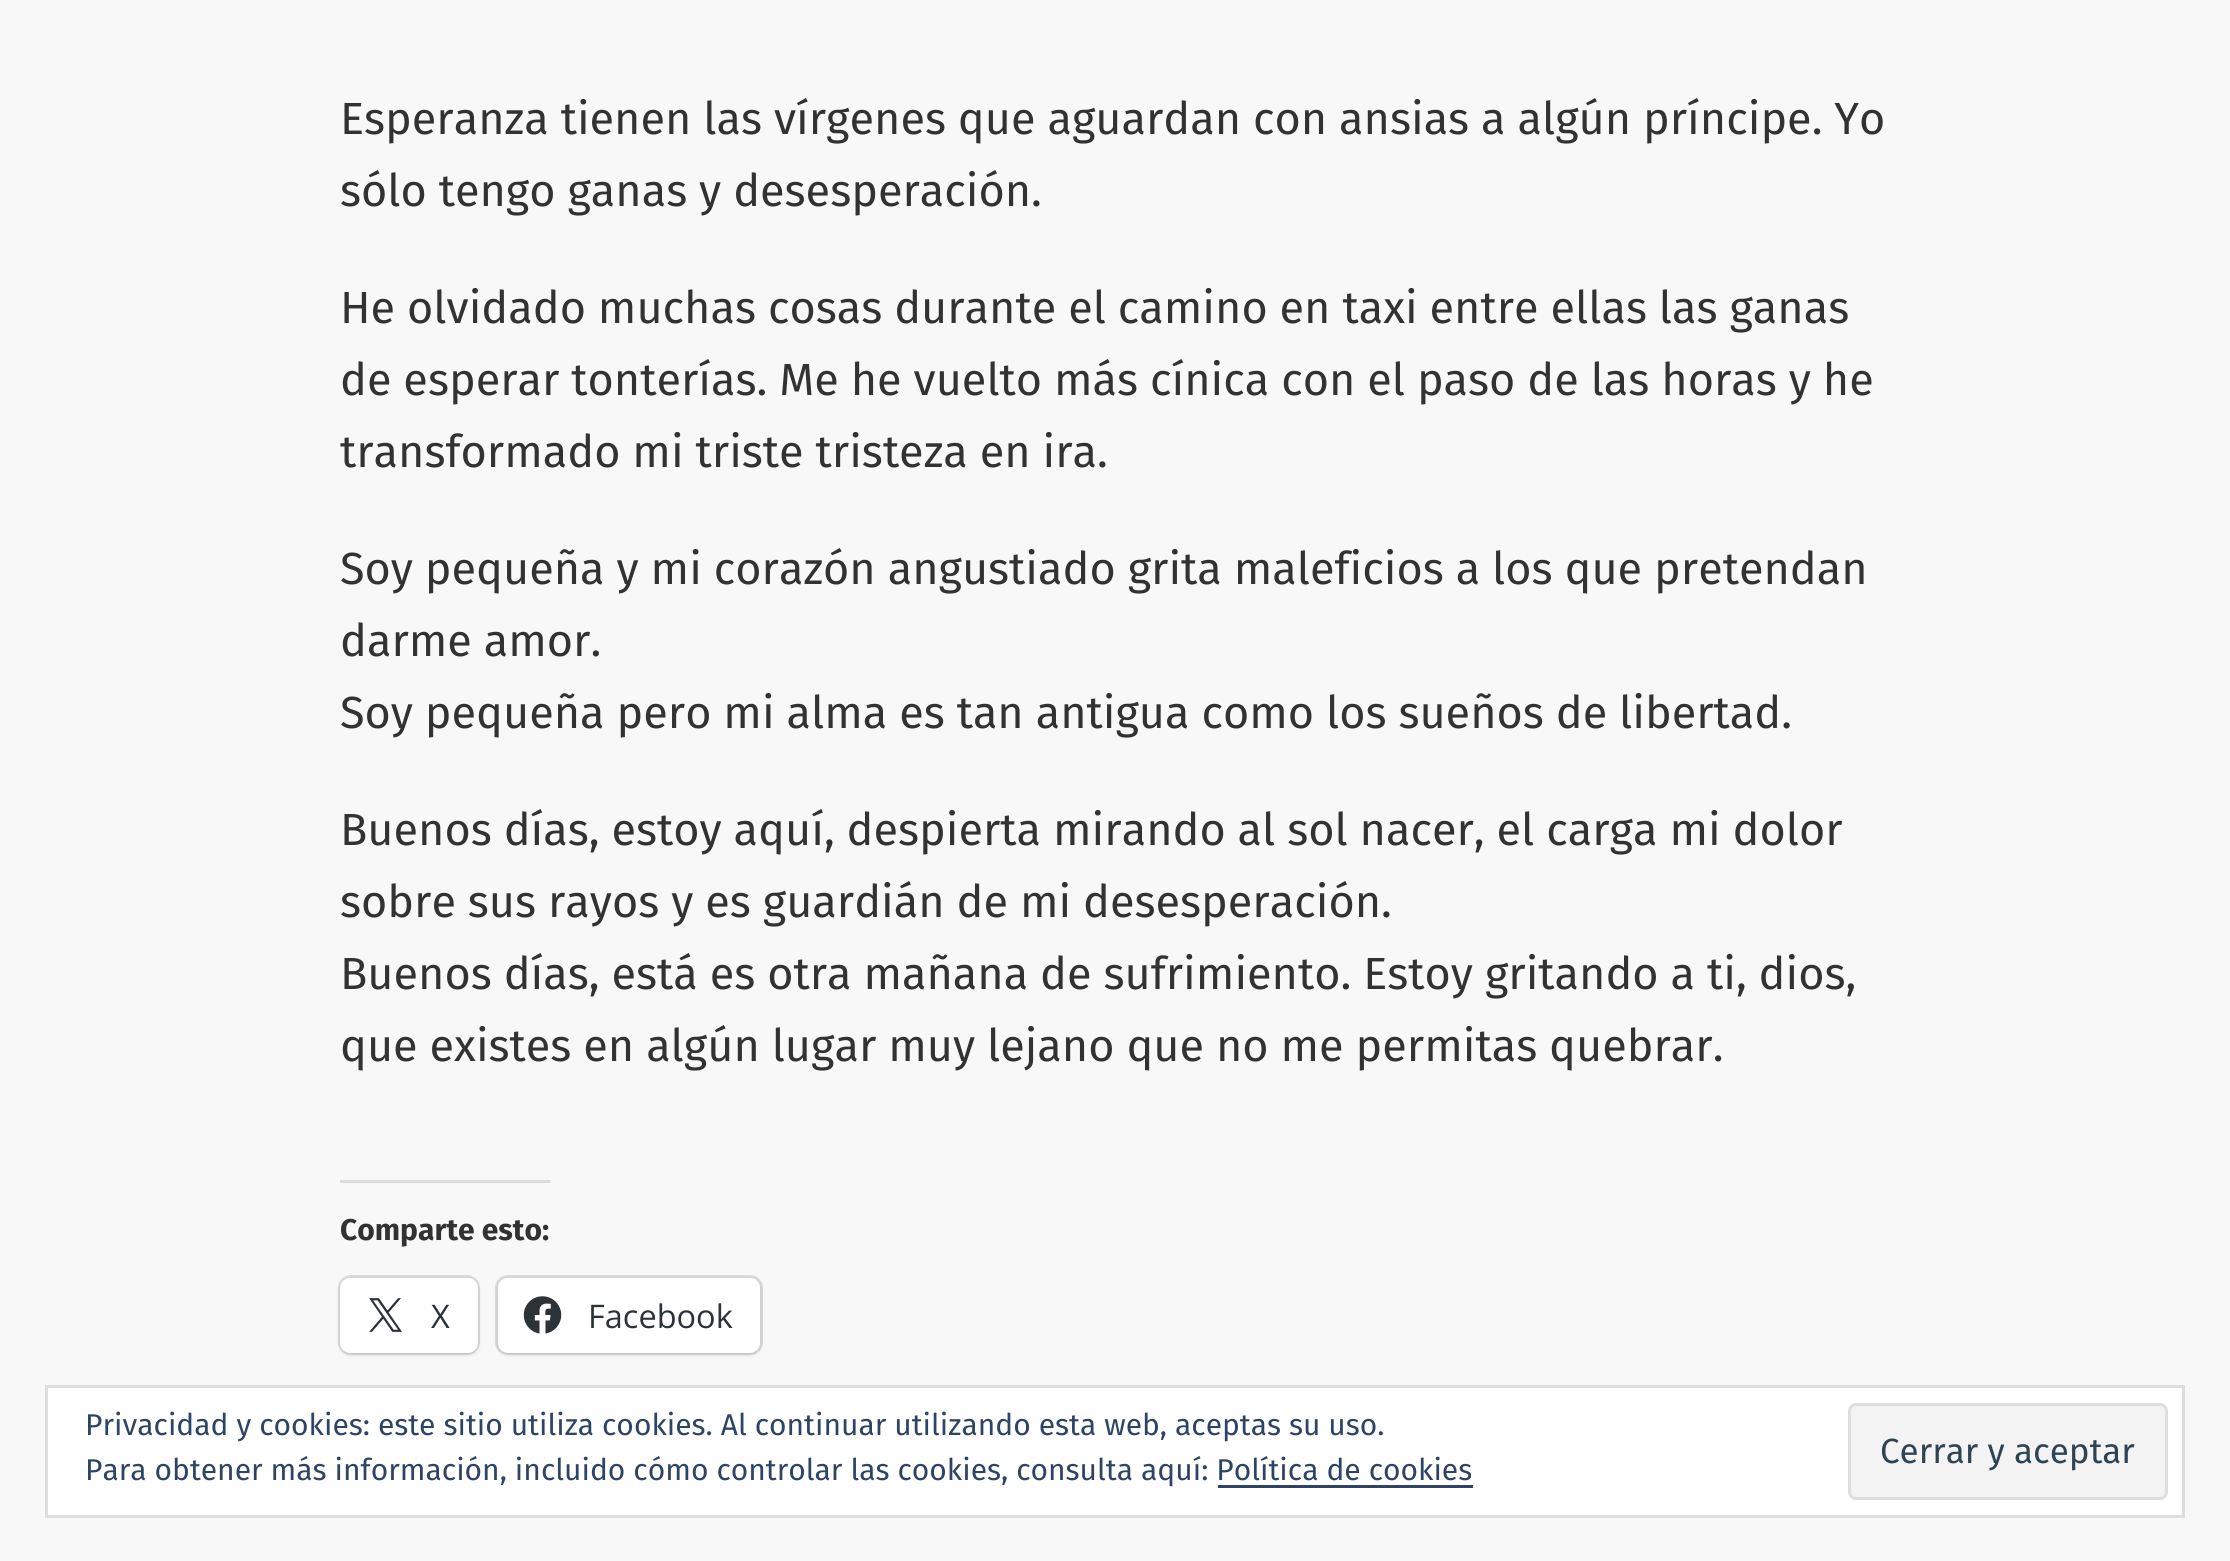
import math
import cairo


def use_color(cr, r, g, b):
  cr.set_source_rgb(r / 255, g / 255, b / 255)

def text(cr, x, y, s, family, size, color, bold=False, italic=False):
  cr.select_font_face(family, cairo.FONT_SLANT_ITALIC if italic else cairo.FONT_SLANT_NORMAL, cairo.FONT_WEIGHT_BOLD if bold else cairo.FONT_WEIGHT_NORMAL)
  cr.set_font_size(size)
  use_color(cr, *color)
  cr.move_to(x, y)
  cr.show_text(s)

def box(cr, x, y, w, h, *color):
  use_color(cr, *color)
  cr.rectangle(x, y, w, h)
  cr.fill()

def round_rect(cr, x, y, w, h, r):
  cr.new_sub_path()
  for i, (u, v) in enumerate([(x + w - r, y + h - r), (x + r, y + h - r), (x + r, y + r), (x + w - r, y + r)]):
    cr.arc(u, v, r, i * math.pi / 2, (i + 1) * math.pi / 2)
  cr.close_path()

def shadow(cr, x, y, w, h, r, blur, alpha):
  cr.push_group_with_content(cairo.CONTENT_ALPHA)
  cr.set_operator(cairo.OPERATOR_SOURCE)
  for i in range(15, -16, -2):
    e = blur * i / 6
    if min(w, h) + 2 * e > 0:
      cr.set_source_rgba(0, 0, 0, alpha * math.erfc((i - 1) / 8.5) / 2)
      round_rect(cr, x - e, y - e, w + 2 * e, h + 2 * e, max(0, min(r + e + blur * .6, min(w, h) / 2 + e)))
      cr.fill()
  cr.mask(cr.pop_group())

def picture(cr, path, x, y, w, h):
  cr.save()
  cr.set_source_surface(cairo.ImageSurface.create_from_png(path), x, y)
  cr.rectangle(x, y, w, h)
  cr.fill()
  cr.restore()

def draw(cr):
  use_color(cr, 248, 248, 248)
  cr.paint()
  box(cr, 340, 1180, 210, 3, 220, 220, 222)
  round_rect(cr, 339.5, 1276.5, 139, 77, 11.5)
  use_color(cr, 218, 218, 218)
  cr.set_line_width(3)
  cr.stroke()
  use_color(cr, 0, 0, 0)
  shadow(cr, 340, 1280, 138, 75, 10, 2.5, 0.12)
  use_color(cr, 255, 255, 255)
  round_rect(cr, 340, 1278, 138, 75, 10)
  cr.fill()
  picture(cr, "img_01.png", 369, 1298, 33, 34)
  round_rect(cr, 496.5, 1276.5, 265, 77, 11.5)
  use_color(cr, 218, 218, 218)
  cr.stroke()
  use_color(cr, 0, 0, 0)
  shadow(cr, 498, 1280, 262, 75, 10, 2.5, 0.12)
  use_color(cr, 255, 255, 255)
  round_rect(cr, 498, 1278, 262, 75, 10)
  cr.fill()
  picture(cr, "img_02.png", 523, 1296, 39, 38)
  cr.rectangle(46.5, 1386.5, 2137, 130)
  cr.fill_preserve()
  use_color(cr, 222, 222, 222)
  cr.stroke()
  use_color(cr, 243, 243, 243)
  round_rect(cr, 1849.5, 1404.5, 317, 94, 6.5)
  cr.fill_preserve()
  use_color(cr, 222, 222, 222)
  cr.stroke()
  box(cr, 1218, 1485, 255, 3, 46, 68, 103)
  text(cr, 340, 134, "Esperanza tienen las vírgenes que aguardan con ansias a algún príncipe. Yo", "Fira Sans", 45, (50, 50, 50))
  text(cr, 340, 206, "sólo tengo ganas y desesperación.", "Fira Sans", 45, (50, 50, 50))
  text(cr, 340, 323, "He olvidado muchas cosas durante el camino en taxi entre ellas las ganas", "Fira Sans", 45, (50, 50, 50))
  text(cr, 340, 395, "de esperar tonterías. Me he vuelto más cínica con el paso de las horas y he", "Fira Sans", 45, (50, 50, 50))
  text(cr, 340, 467, "transformado mi triste tristeza en ira.", "Fira Sans", 45, (50, 50, 50))
  text(cr, 340, 584, "Soy pequeña y mi corazón angustiado grita maleficios a los que pretendan", "Fira Sans", 45, (50, 50, 50))
  text(cr, 340, 656, "darme amor.", "Fira Sans", 45, (50, 50, 50))
  text(cr, 340, 728, "Soy pequeña pero mi alma es tan antigua como los sueños de libertad.", "Fira Sans", 45, (50, 50, 50))
  text(cr, 340, 845, "Buenos días, estoy aquí, despierta mirando al sol nacer, el carga mi dolor", "Fira Sans", 45, (50, 50, 50))
  text(cr, 340, 917, "sobre sus rayos y es guardián de mi desesperación.", "Fira Sans", 45, (50, 50, 50))
  text(cr, 340, 989, "Buenos días, está es otra mañana de sufrimiento. Estoy gritando a ti, dios,", "Fira Sans", 45, (50, 50, 50))
  text(cr, 340, 1061, "que existes en algún lugar muy lejano que no me permitas quebrar.", "Fira Sans", 45, (50, 50, 50))
  text(cr, 340, 1240, "Comparte esto:", "Fira Sans", 30, (50, 50, 50), bold=True)
  text(cr, 431, 1328, "X", "Open Sans", 32.5, (44, 51, 56))
  text(cr, 588, 1328, "Facebook", "Open Sans", 32.5, (44, 51, 56))
  text(cr, 85, 1435, "Privacidad y cookies: este sitio utiliza cookies. Al continuar utilizando esta web, aceptas su uso.", "Fira Sans", 30, (46, 68, 103))
  text(cr, 85, 1480, "Para obtener más información, incluido cómo controlar las cookies, consulta aquí: Política de cookies", "Fira Sans", 30, (46, 68, 103))
  text(cr, 1880, 1463, "Cerrar y aceptar", "Fira Sans", 35, (46, 68, 83))


surface = cairo.ImageSurface(cairo.FORMAT_RGB24, 2230, 1561)
cr = cairo.Context(surface)
options = cairo.FontOptions()
options.set_hint_metrics(cairo.HINT_METRICS_OFF)
options.set_hint_style(cairo.HINT_STYLE_NONE)
cr.set_font_options(options)
cr.set_miter_limit(4)
draw(cr)
surface.write_to_png("out.png")
